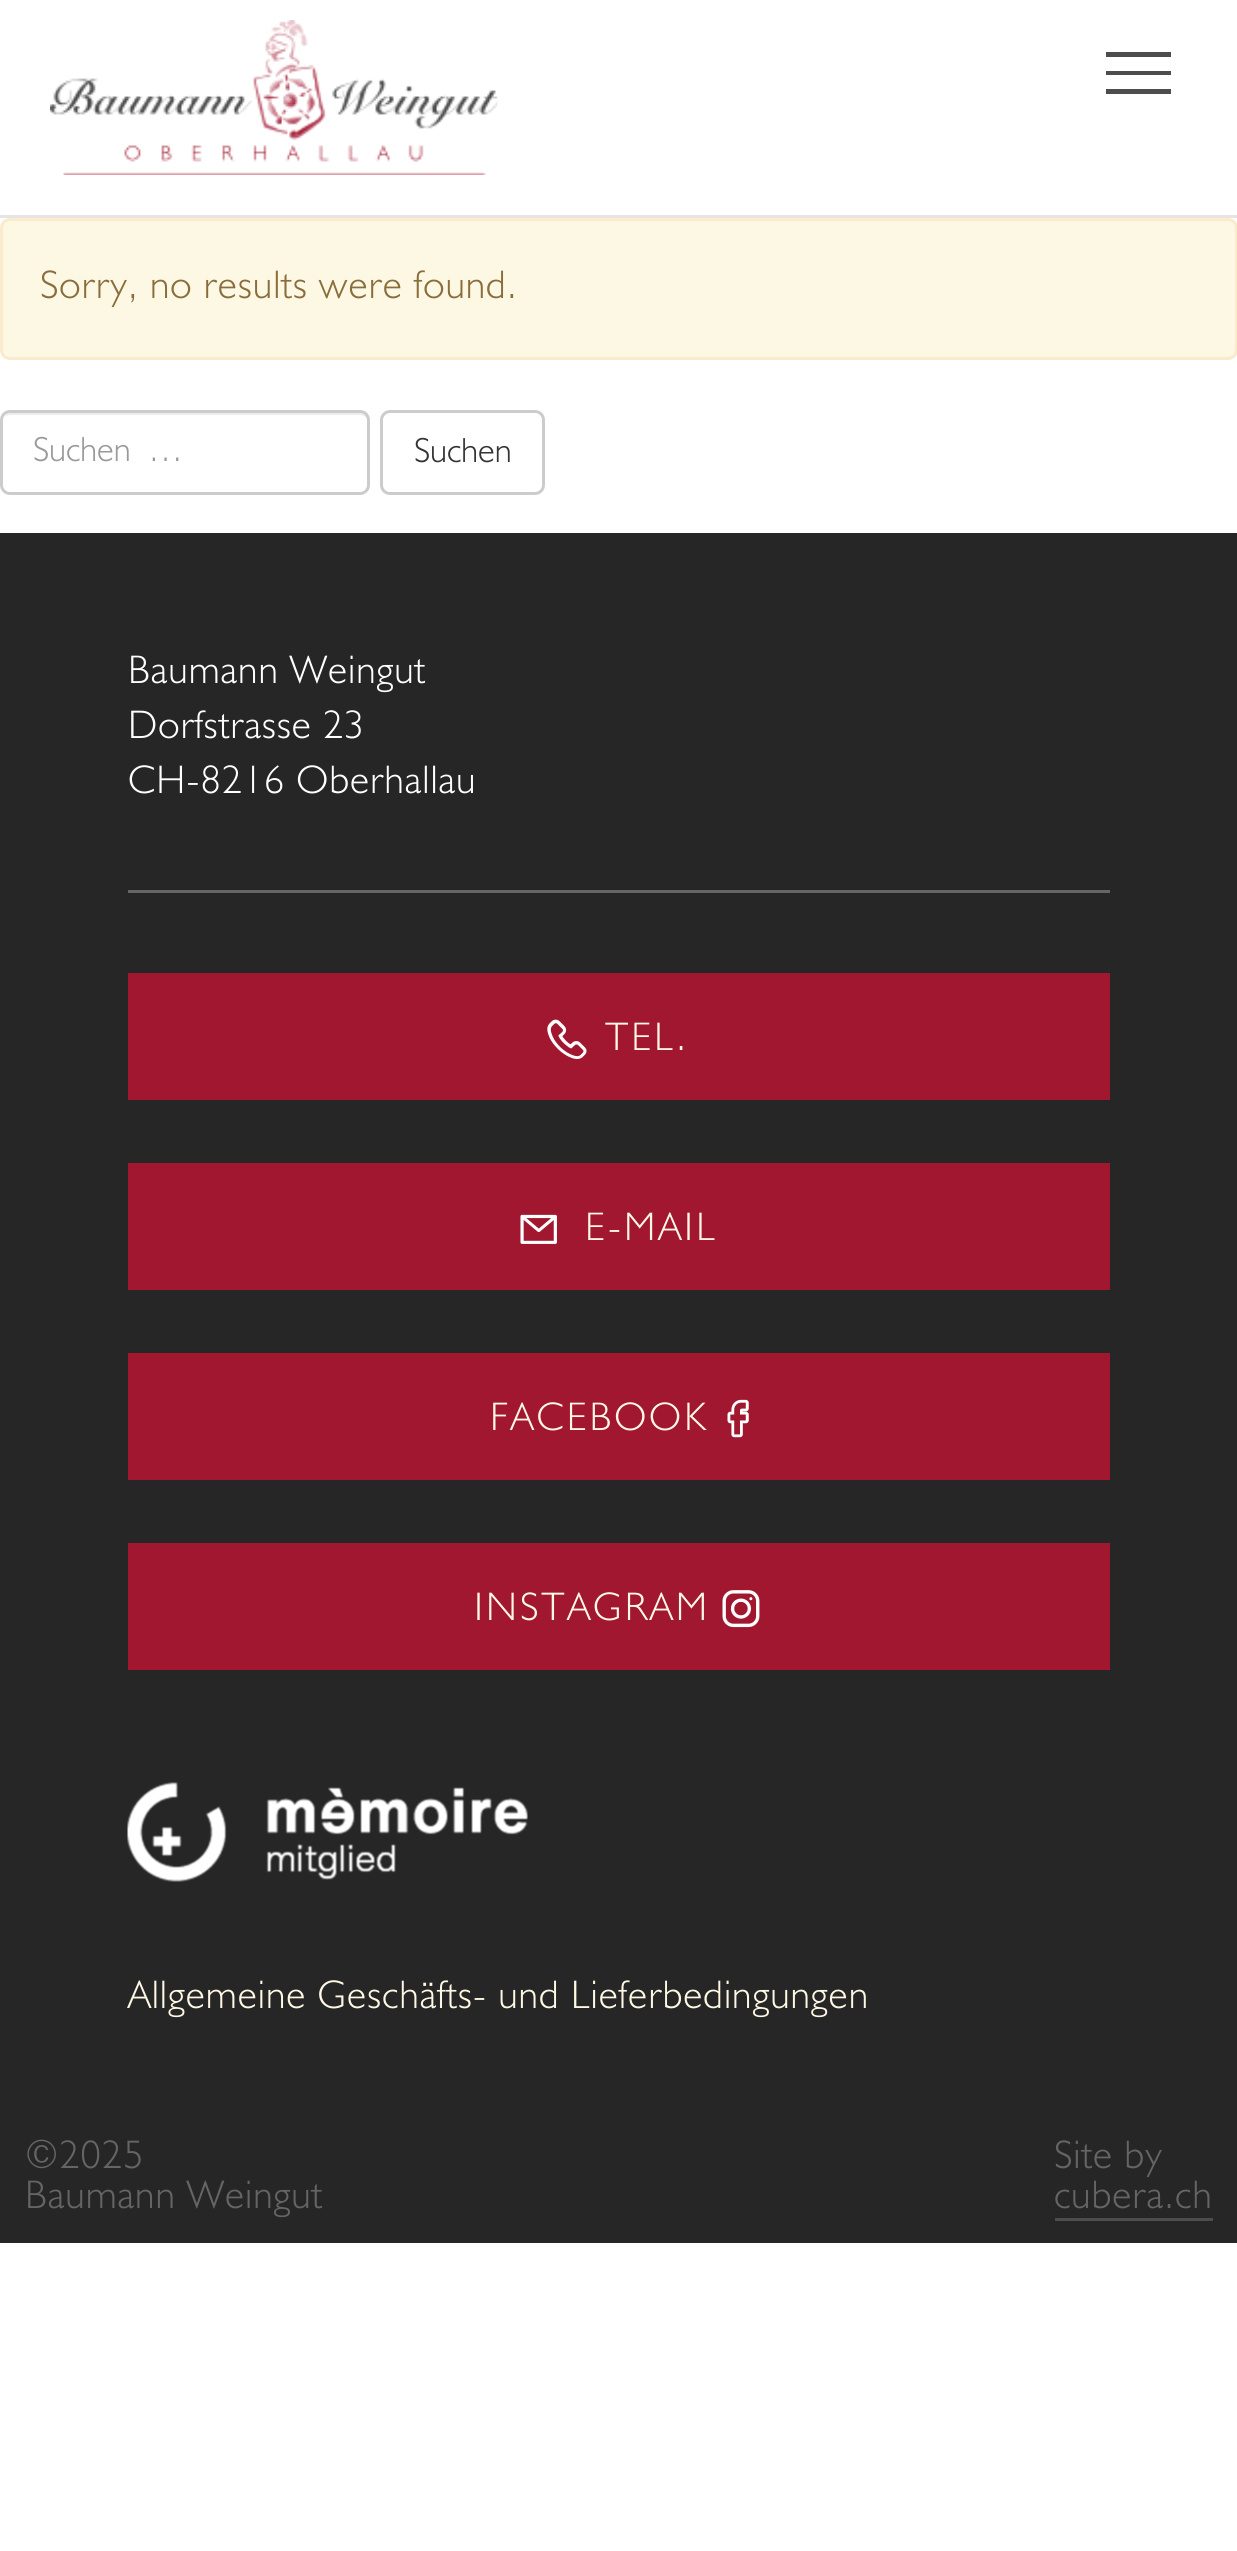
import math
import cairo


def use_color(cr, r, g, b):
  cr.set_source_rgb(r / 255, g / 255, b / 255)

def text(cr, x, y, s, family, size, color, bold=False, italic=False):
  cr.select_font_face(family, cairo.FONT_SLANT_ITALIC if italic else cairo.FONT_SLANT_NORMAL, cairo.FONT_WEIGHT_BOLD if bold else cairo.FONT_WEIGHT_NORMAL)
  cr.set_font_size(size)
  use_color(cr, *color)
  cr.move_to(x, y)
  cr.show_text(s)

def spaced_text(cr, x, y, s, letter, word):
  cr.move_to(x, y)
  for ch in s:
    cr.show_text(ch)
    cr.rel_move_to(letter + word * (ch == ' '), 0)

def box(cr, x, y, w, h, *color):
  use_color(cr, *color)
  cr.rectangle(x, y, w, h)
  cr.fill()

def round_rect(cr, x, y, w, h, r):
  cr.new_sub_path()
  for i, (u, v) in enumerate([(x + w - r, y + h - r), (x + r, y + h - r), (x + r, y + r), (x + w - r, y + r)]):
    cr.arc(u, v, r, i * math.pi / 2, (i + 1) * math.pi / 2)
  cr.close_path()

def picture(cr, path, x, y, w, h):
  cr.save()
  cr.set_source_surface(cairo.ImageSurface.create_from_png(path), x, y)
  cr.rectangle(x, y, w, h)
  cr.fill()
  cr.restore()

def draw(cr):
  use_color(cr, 255, 255, 255)
  cr.paint()
  box(cr, 0, 215, 1237, 3, 229, 229, 229)
  picture(cr, "img_01.png", 50, 20, 448, 155)
  use_color(cr, 77, 77, 77)
  cr.new_path()
  cr.move_to(1106, 52)
  cr.line_to(1171, 52)
  cr.line_to(1171, 57)
  cr.line_to(1106, 57)
  cr.close_path()
  cr.move_to(1106, 71)
  cr.line_to(1171, 71)
  cr.line_to(1171, 75)
  cr.line_to(1106, 75)
  cr.close_path()
  cr.move_to(1106, 89)
  cr.line_to(1171, 89)
  cr.line_to(1171, 94)
  cr.line_to(1106, 94)
  cr.close_path()
  cr.fill()
  use_color(cr, 252, 248, 227)
  round_rect(cr, 1.5, 219.5, 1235, 139, 8.5)
  cr.fill_preserve()
  use_color(cr, 250, 235, 204)
  cr.set_line_width(3)
  cr.stroke()
  use_color(cr, 236, 236, 236)
  cr.new_path()
  cr.move_to(10, 415)
  cr.line_to(360, 415)
  cr.curve_to(364, 415, 368, 418, 368, 422)
  cr.curve_to(368, 417, 365, 413, 360, 413)
  cr.line_to(11, 413)
  cr.curve_to(8, 413, 5, 415, 4, 418)
  cr.curve_to(5, 416, 8, 415, 10, 415)
  cr.close_path()
  cr.fill()
  round_rect(cr, 1.5, 411.5, 367, 82, 8.5)
  use_color(cr, 204, 204, 204)
  cr.stroke()
  round_rect(cr, 381.5, 411.5, 162, 82, 8.5)
  cr.stroke()
  box(cr, 0, 533, 1237, 1710, 38, 38, 38)
  box(cr, 128, 890, 982, 3, 101, 101, 101)
  box(cr, 128, 973, 982, 127, 161, 23, 48)
  picture(cr, "img_02.png", 547, 1019, 40, 40)
  box(cr, 128, 1163, 982, 127, 161, 23, 48)
  picture(cr, "img_03.png", 520, 1214, 37, 30)
  box(cr, 128, 1353, 982, 127, 161, 23, 48)
  picture(cr, "img_04.png", 727, 1399, 22, 39)
  box(cr, 128, 1543, 982, 127, 161, 23, 48)
  picture(cr, "img_05.png", 722, 1590, 38, 38)
  picture(cr, "img_06.png", 127, 1782, 401, 100)
  box(cr, 1055, 2218, 158, 3, 77, 77, 77)
  cr.select_font_face("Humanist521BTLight")
  cr.set_font_size(40)
  use_color(cr, 138, 109, 59)
  spaced_text(cr, 40, 298, "Sorry, no results were found.", 1, 0)
  text(cr, 33, 461, "Suchen", "Humanist521BTLight", 35, (153, 153, 153))
  text(cr, 148, 461, "…", "Humanist521BTLight", 35, (153, 153, 153))
  text(cr, 414, 462, "Suchen", "Humanist521BTLight", 35, (51, 51, 51))
  cr.set_font_size(40)
  use_color(cr, 255, 255, 255)
  spaced_text(cr, 128, 683, "Baumann Weingut", 1, 0)
  spaced_text(cr, 128, 738, "Dorfstrasse 23", 1, 0)
  spaced_text(cr, 128, 793, "CH-8216 Oberhallau", 1, 0)
  use_color(cr, 255, 248, 229)
  spaced_text(cr, 605, 1050, "TEL.", 3, 0)
  spaced_text(cr, 585, 1240, "E-MAIL", 3, 0)
  spaced_text(cr, 490, 1430, "FACEBOOK", 3, 0)
  spaced_text(cr, 474, 1620, "INSTAGRAM", 3, 0)
  spaced_text(cr, 128, 2008, "Allgemeine Geschäfts- und Lieferbedingungen", 1, 0)
  use_color(cr, 101, 101, 101)
  spaced_text(cr, 25, 2168, "©2025", 1, 0)
  spaced_text(cr, 25, 2208, "Baumann Weingut", 1, 0)
  spaced_text(cr, 1054, 2168, "Site by", 1, 0)
  spaced_text(cr, 1054, 2208, "cubera.ch", 1, 0)


surface = cairo.ImageSurface(cairo.FORMAT_RGB24, 1237, 2551)
cr = cairo.Context(surface)
options = cairo.FontOptions()
options.set_hint_metrics(cairo.HINT_METRICS_OFF)
options.set_hint_style(cairo.HINT_STYLE_NONE)
cr.set_font_options(options)
cr.set_miter_limit(4)
draw(cr)
surface.write_to_png("out.png")
